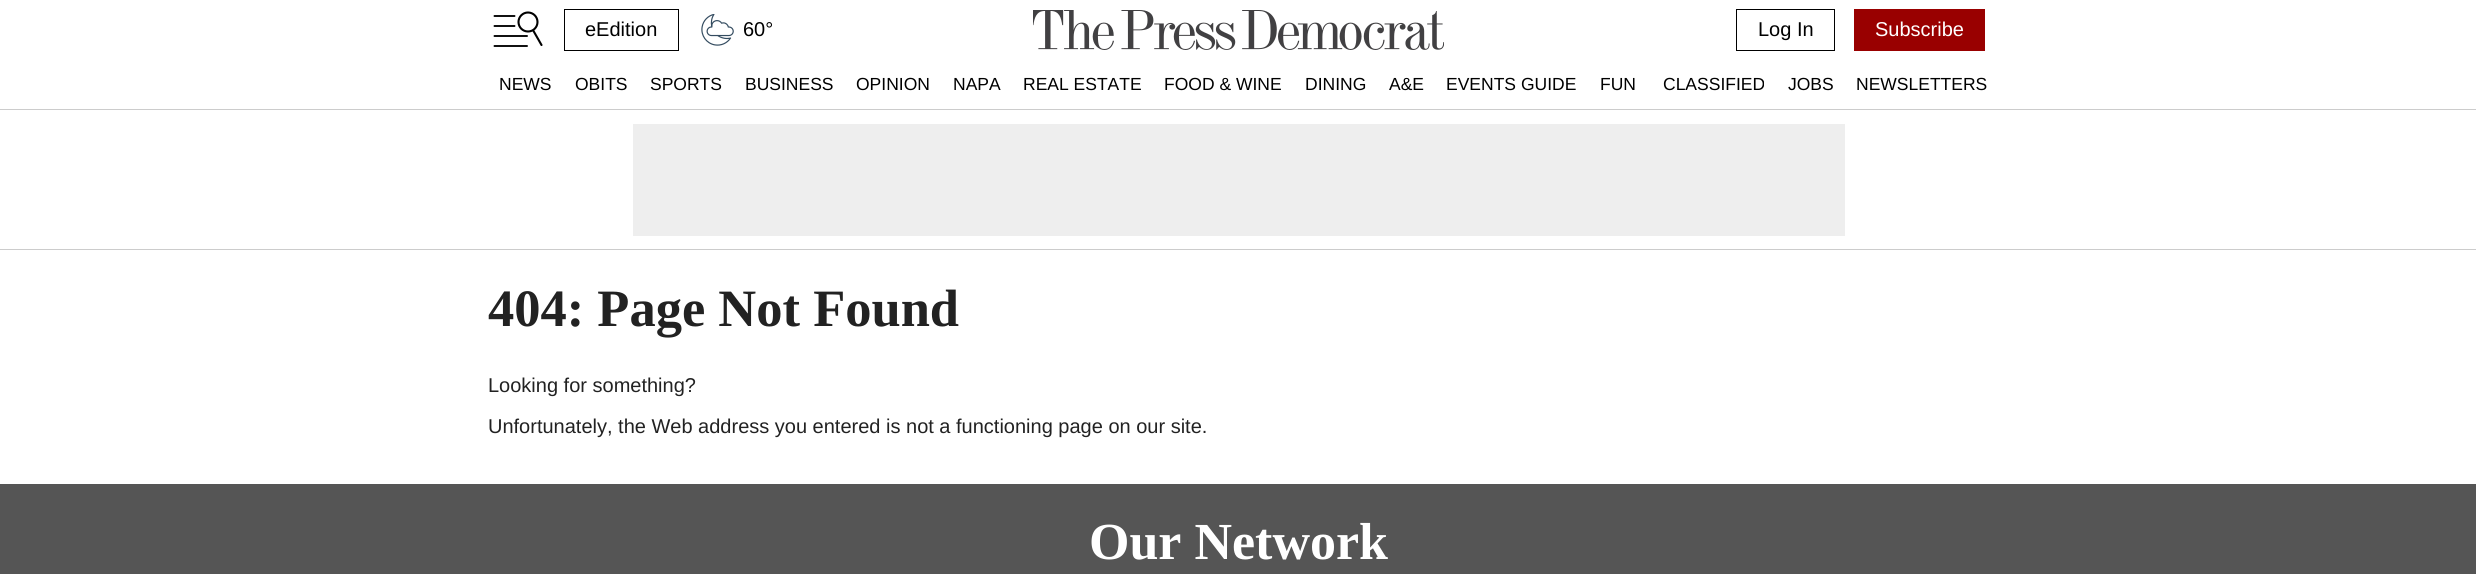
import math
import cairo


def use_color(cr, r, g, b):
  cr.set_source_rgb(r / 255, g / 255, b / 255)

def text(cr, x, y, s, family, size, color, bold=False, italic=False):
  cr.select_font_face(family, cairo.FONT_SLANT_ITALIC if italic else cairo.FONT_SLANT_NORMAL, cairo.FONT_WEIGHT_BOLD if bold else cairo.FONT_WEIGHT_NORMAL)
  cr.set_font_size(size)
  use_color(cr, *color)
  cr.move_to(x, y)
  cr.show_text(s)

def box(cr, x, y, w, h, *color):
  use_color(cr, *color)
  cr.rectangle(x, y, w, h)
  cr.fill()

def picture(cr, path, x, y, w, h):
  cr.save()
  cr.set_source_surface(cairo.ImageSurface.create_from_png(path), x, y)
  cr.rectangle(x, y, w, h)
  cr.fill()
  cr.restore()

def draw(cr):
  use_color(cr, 255, 255, 255)
  cr.paint()
  cr.new_path()
  cr.move_to(494.5, 16)
  cr.line_to(514.5, 16)
  cr.move_to(494.5, 26)
  cr.line_to(514.5, 26)
  cr.move_to(494.5, 36)
  cr.line_to(527, 36)
  cr.move_to(494.5, 46)
  cr.line_to(527, 46)
  use_color(cr, 0, 0, 0)
  cr.set_line_width(1.9)
  cr.set_line_cap(cairo.LINE_CAP_ROUND)
  cr.stroke()
  cr.arc(528, 22, 9.5, 0, 2 * math.pi)
  cr.set_line_width(2.1)
  cr.set_line_cap(cairo.LINE_CAP_BUTT)
  cr.stroke()
  cr.new_path()
  cr.move_to(533.5, 31)
  cr.line_to(541.5, 45)
  cr.set_line_cap(cairo.LINE_CAP_ROUND)
  cr.stroke()
  cr.rectangle(564.5, 9.5, 114, 41)
  cr.set_line_width(1)
  cr.set_line_cap(cairo.LINE_CAP_BUTT)
  cr.stroke()
  picture(cr, "img_01.png", 701, 14, 33, 32)
  picture(cr, "img_02.png", 1033, 10, 411, 40)
  cr.rectangle(1736.5, 9.5, 98, 41)
  cr.stroke()
  box(cr, 1854, 9, 131, 42, 153, 0, 0)
  box(cr, 0, 109, 2476, 1, 204, 204, 204)
  box(cr, 0, 249, 2476, 1, 204, 204, 204)
  box(cr, 633, 124, 1212, 112, 238, 238, 238)
  box(cr, 0, 484, 2476, 90, 85, 85, 85)
  text(cr, 585, 36, "eEdition", "Liberation Sans", 20, (0, 0, 0))
  text(cr, 743, 36, "60°", "Liberation Sans", 20, (0, 0, 0))
  text(cr, 1758, 36, "Log In", "Liberation Sans", 20, (0, 0, 0))
  text(cr, 1875, 36, "Subscribe", "Liberation Sans", 20, (255, 255, 255))
  text(cr, 499, 90, "NEWS", "Liberation Sans", 17.5, (0, 0, 0))
  text(cr, 575, 90, "OBITS", "Liberation Sans", 17.5, (0, 0, 0))
  text(cr, 650, 90, "SPORTS", "Liberation Sans", 17.5, (0, 0, 0))
  text(cr, 745, 90, "BUSINESS", "Liberation Sans", 17.5, (0, 0, 0))
  text(cr, 856, 90, "OPINION", "Liberation Sans", 17.5, (0, 0, 0))
  text(cr, 953, 90, "NAPA", "Liberation Sans", 17.5, (0, 0, 0))
  text(cr, 1023, 90, "REAL ESTATE", "Liberation Sans", 17.5, (0, 0, 0))
  text(cr, 1164, 90, "FOOD & WINE", "Liberation Sans", 17.5, (0, 0, 0))
  text(cr, 1305, 90, "DINING", "Liberation Sans", 17.5, (0, 0, 0))
  text(cr, 1389, 90, "A&E", "Liberation Sans", 17.5, (0, 0, 0))
  text(cr, 1446, 90, "EVENTS GUIDE", "Liberation Sans", 17.5, (0, 0, 0))
  text(cr, 1600, 90, "FUN", "Liberation Sans", 17.5, (0, 0, 0))
  text(cr, 1663, 90, "CLASSIFIED", "Liberation Sans", 17.5, (0, 0, 0))
  text(cr, 1788, 90, "JOBS", "Liberation Sans", 17.5, (0, 0, 0))
  text(cr, 1856, 90, "NEWSLETTERS", "Liberation Sans", 17.5, (0, 0, 0))
  text(cr, 488, 326, "404: Page Not Found", "Liberation Serif", 52.5, (34, 34, 34), bold=True)
  text(cr, 488, 392, "Looking for something?", "Liberation Sans", 20, (34, 34, 34))
  text(cr, 488, 433, "Unfortunately, the Web address you entered is not a functioning page on our site.", "Liberation Sans", 20, (34, 34, 34))
  text(cr, 1089, 559, "Our Network", "Liberation Serif", 52, (255, 255, 255), bold=True)


surface = cairo.ImageSurface(cairo.FORMAT_RGB24, 2476, 574)
cr = cairo.Context(surface)
options = cairo.FontOptions()
options.set_hint_metrics(cairo.HINT_METRICS_OFF)
options.set_hint_style(cairo.HINT_STYLE_NONE)
cr.set_font_options(options)
cr.set_miter_limit(4)
draw(cr)
surface.write_to_png("out.png")
